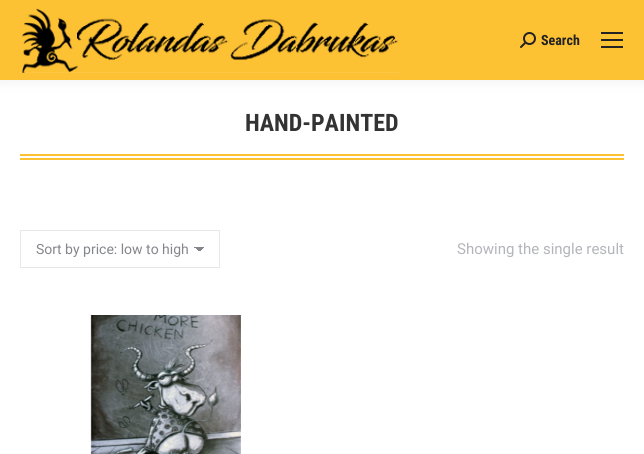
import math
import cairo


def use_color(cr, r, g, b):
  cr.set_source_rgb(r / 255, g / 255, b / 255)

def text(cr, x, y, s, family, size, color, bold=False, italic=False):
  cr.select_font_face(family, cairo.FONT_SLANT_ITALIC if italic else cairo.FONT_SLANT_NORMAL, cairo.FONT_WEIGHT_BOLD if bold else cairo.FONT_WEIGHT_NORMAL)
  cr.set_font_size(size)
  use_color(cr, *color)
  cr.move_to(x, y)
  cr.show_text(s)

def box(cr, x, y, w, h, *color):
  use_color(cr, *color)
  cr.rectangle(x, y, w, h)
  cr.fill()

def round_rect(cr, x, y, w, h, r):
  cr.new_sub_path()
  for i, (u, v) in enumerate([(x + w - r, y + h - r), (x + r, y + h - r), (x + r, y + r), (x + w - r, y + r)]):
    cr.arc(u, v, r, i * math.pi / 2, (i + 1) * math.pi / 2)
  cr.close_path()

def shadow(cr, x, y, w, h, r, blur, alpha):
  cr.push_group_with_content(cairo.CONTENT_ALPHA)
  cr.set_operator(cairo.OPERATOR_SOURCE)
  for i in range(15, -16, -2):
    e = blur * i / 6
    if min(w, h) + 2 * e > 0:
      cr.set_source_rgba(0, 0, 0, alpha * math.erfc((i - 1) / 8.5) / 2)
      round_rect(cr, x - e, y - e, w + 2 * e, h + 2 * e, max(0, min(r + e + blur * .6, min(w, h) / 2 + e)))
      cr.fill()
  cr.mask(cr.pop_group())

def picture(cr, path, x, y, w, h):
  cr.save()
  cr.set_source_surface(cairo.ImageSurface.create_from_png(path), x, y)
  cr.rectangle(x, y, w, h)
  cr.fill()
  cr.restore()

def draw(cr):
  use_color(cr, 255, 255, 255)
  cr.paint()
  use_color(cr, 0, 0, 0)
  shadow(cr, -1, -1, 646, 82, 0, 7.5, 0.07)
  box(cr, 0, 0, 644, 80, 253, 193, 52)
  picture(cr, "img_01.png", 20, 8, 379, 65)
  picture(cr, "img_02.png", 520, 32, 16, 16)
  box(cr, 601, 32, 22, 2, 34, 34, 34)
  box(cr, 601, 39, 22, 2, 34, 34, 34)
  box(cr, 601, 46, 22, 2, 34, 34, 34)
  box(cr, 20, 154, 604, 2, 253, 193, 52)
  box(cr, 20, 158, 604, 2, 253, 193, 52)
  gradient = cairo.LinearGradient(199, 247, 204, 252)
  gradient.add_color_stop_rgba(0.5, 0.522, 0.525, 0.549, 1)
  gradient.add_color_stop_rgba(0.5, 1, 1, 1, 1)
  cr.set_source(gradient)
  cr.rectangle(199, 247, 5, 4)
  cr.fill()
  gradient = cairo.LinearGradient(194, 252, 199, 247)
  gradient.add_color_stop_rgba(0.5, 1, 1, 1, 1)
  gradient.add_color_stop_rgba(0.5, 0.522, 0.525, 0.549, 1)
  cr.set_source(gradient)
  cr.rectangle(194, 247, 5, 4)
  cr.fill()
  cr.rectangle(20.5, 230.5, 199, 37)
  use_color(cr, 231, 231, 231)
  cr.set_line_width(1)
  cr.stroke()
  picture(cr, "img_03.png", 90, 315, 151, 139)
  text(cr, 541, 45, "Search", "Roboto Condensed", 14, (34, 34, 34), bold=True)
  text(cr, 245, 131, "HAND-PAINTED", "Roboto Condensed", 24, (51, 51, 51), bold=True)
  text(cr, 36, 254, "Sort by price: low to high", "Roboto", 14, (133, 134, 140))
  text(cr, 457, 254, "Showing the single result", "Roboto", 15, (180, 181, 187))


surface = cairo.ImageSurface(cairo.FORMAT_RGB24, 644, 454)
cr = cairo.Context(surface)
options = cairo.FontOptions()
options.set_hint_metrics(cairo.HINT_METRICS_OFF)
options.set_hint_style(cairo.HINT_STYLE_NONE)
cr.set_font_options(options)
cr.set_miter_limit(4)
draw(cr)
surface.write_to_png("out.png")
